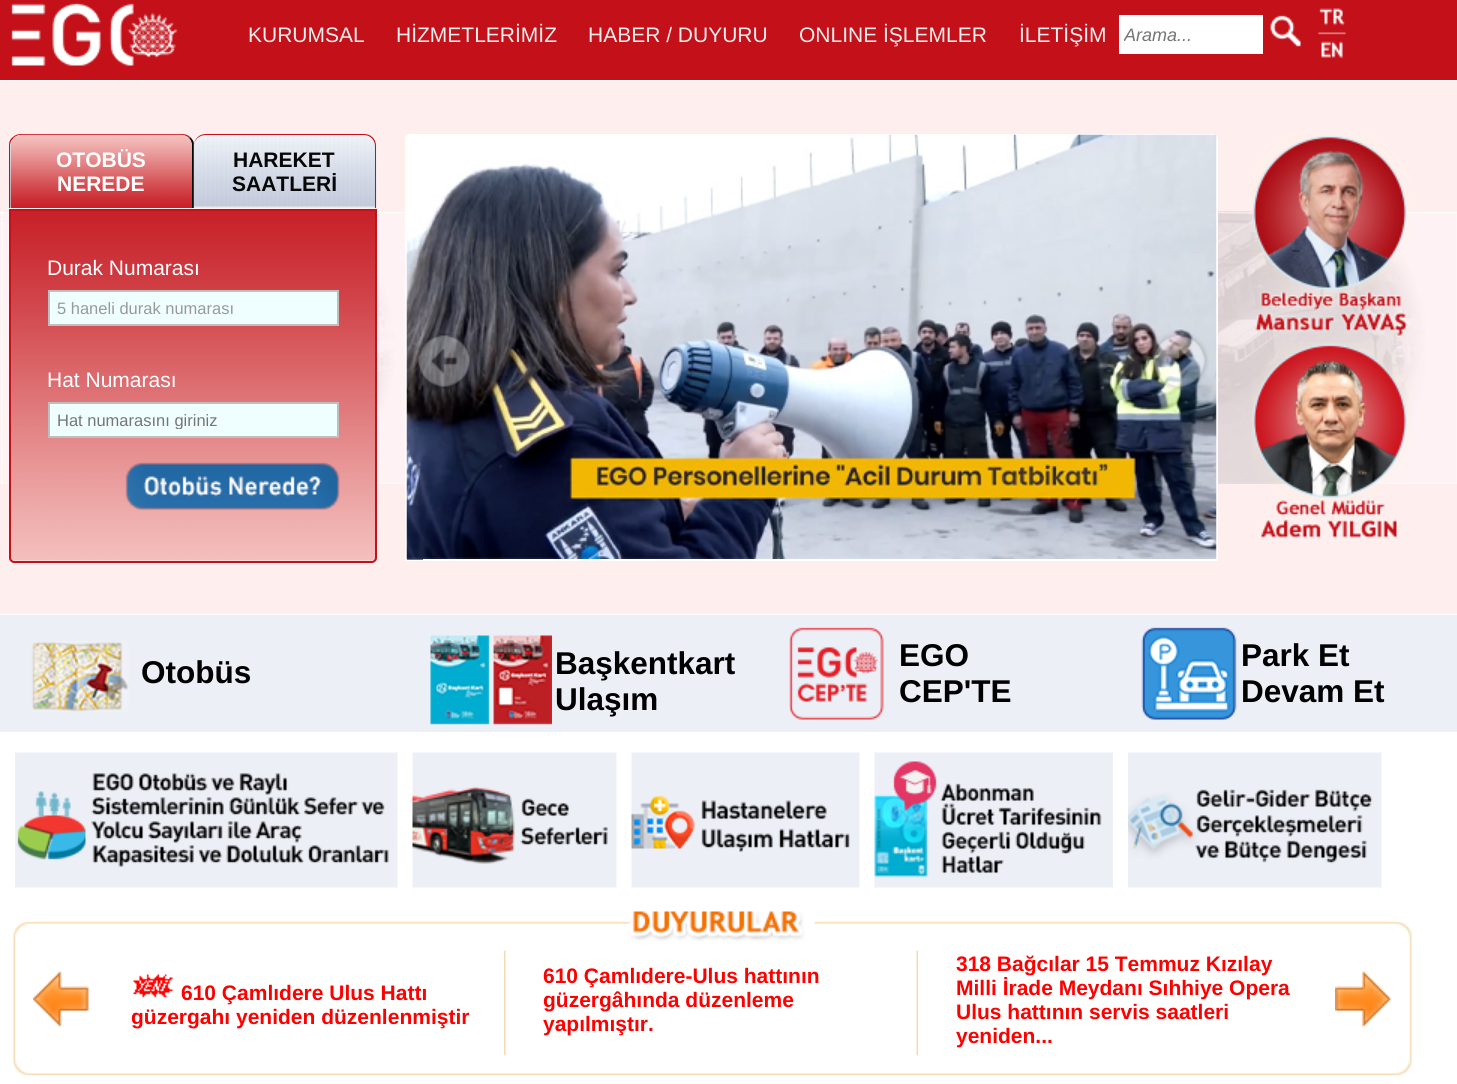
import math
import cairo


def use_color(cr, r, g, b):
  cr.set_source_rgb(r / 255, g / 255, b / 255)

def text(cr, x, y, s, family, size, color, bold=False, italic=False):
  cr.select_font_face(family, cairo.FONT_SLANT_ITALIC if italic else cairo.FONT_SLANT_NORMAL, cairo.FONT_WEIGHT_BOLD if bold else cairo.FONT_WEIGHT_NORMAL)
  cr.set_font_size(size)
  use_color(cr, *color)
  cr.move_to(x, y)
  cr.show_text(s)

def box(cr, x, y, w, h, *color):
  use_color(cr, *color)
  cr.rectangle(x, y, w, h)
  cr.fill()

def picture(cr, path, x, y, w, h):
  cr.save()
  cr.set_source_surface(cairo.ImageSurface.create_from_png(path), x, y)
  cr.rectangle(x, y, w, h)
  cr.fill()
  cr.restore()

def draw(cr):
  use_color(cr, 255, 255, 255)
  cr.paint()
  box(cr, 0, 0, 1457, 80, 195, 16, 25)
  picture(cr, "img_01.png", 11, 3, 167, 63)
  box(cr, 1119, 15, 144, 39, 255, 255, 255)
  picture(cr, "img_02.png", 1270, 15, 31, 32)
  picture(cr, "img_03.png", 1318, 8, 28, 50)
  box(cr, 0, 81, 1457, 533, 255, 238, 238)
  picture(cr, "img_04.png", 0, 211, 1457, 273)
  picture(cr, "img_05.png", 9, 134, 185, 74)
  use_color(cr, 195, 16, 25)
  cr.new_path()
  cr.move_to(21, 134)
  cr.line_to(182, 134)
  cr.curve_to(185, 134, 188, 135, 190, 137)
  cr.line_to(189, 138)
  cr.curve_to(187, 136, 184, 135, 182, 135)
  cr.line_to(21, 135)
  cr.curve_to(18, 135, 15, 136, 14, 138)
  cr.line_to(13, 137)
  cr.curve_to(15, 135, 18, 134, 21, 134)
  cr.close_path()
  cr.fill()
  use_color(cr, 0, 0, 0)
  cr.new_path()
  cr.move_to(190, 137)
  cr.curve_to(192, 139, 193, 140, 194, 143)
  cr.line_to(194, 208)
  cr.line_to(192, 208)
  cr.line_to(192, 146)
  cr.curve_to(192, 143, 191, 140, 189, 138)
  cr.close_path()
  cr.fill()
  use_color(cr, 195, 16, 25)
  cr.new_path()
  cr.move_to(13, 137)
  cr.line_to(14, 138)
  cr.curve_to(11, 140, 10, 143, 10, 146)
  cr.line_to(10, 208)
  cr.line_to(9, 208)
  cr.line_to(9, 146)
  cr.curve_to(9, 142, 10, 139, 13, 137)
  cr.close_path()
  cr.fill()
  picture(cr, "img_06.png", 10, 134, 182, 74)
  picture(cr, "img_07.png", 193, 134, 184, 74)
  cr.set_fill_rule(cairo.FILL_RULE_EVEN_ODD)
  cr.new_path()
  cr.move_to(206, 134)
  cr.line_to(364, 134)
  cr.curve_to(371, 134, 376, 139, 376, 146)
  cr.line_to(376, 208)
  cr.line_to(194, 208)
  cr.line_to(194, 146)
  cr.curve_to(194, 139, 199, 134, 206, 134)
  cr.close_path()
  cr.move_to(206, 135)
  cr.line_to(364, 135)
  cr.curve_to(370, 135, 375, 140, 375, 146)
  cr.line_to(375, 208)
  cr.line_to(194, 208)
  cr.line_to(194, 146)
  cr.curve_to(194, 140, 199, 135, 206, 135)
  cr.close_path()
  cr.fill()
  picture(cr, "img_08.png", 9, 211, 368, 350)
  cr.new_path()
  cr.move_to(10, 210)
  cr.line_to(376, 210)
  cr.line_to(376, 558)
  cr.curve_to(376, 560, 374, 562, 372, 562)
  cr.line_to(14, 562)
  cr.curve_to(12, 562, 10, 560, 10, 558)
  cr.close_path()
  cr.stroke()
  use_color(cr, 239, 255, 255)
  cr.rectangle(49, 291, 289, 34)
  cr.fill_preserve()
  use_color(cr, 191, 189, 189)
  cr.stroke()
  use_color(cr, 239, 255, 255)
  cr.rectangle(49, 403, 289, 34)
  cr.fill_preserve()
  use_color(cr, 191, 189, 189)
  cr.stroke()
  picture(cr, "img_09.png", 125, 462, 215, 48)
  cr.new_path()
  cr.move_to(410, 135)
  cr.line_to(1213, 135)
  cr.curve_to(1215, 135, 1217, 137, 1217, 139)
  cr.line_to(1217, 560)
  cr.line_to(406, 560)
  cr.line_to(406, 139)
  cr.curve_to(406, 137, 408, 135, 410, 135)
  cr.close_path()
  use_color(cr, 255, 255, 255)
  cr.stroke()
  picture(cr, "img_10.png", 406, 134, 811, 425)
  box(cr, 407, 559, 16, 1, 115, 115, 115)
  picture(cr, "img_11.png", 415, 333, 57, 56)
  picture(cr, "img_12.png", 1149, 331, 60, 60)
  picture(cr, "img_13.png", 1249, 133, 163, 204)
  picture(cr, "img_14.png", 1252, 342, 160, 197)
  box(cr, 0, 615, 1457, 117, 237, 239, 247)
  picture(cr, "img_15.png", 31, 641, 98, 71)
  picture(cr, "img_16.png", 430, 635, 122, 90)
  picture(cr, "img_17.png", 789, 627, 95, 93)
  picture(cr, "img_18.png", 1141, 627, 96, 93)
  picture(cr, "img_19.png", 15, 752, 383, 136)
  picture(cr, "img_20.png", 412, 752, 205, 136)
  picture(cr, "img_21.png", 631, 752, 229, 136)
  picture(cr, "img_22.png", 874, 752, 239, 136)
  picture(cr, "img_23.png", 1128, 752, 254, 136)
  picture(cr, "img_24.png", 13, 911, 1399, 165)
  picture(cr, "img_25.png", 33, 971, 56, 57)
  picture(cr, "img_26.png", 504, 950, 2, 106)
  picture(cr, "img_27.png", 133, 974, 40, 24)
  picture(cr, "img_28.png", 916, 950, 2, 106)
  picture(cr, "img_29.png", 1335, 971, 56, 57)
  text(cr, 248, 42, "KURUMSAL", "Liberation Sans", 21, (238, 238, 238))
  text(cr, 396, 42, "HİZMETLERİMİZ", "Liberation Sans", 21, (238, 238, 238))
  text(cr, 588, 42, "HABER / DUYURU", "Liberation Sans", 21, (238, 238, 238))
  text(cr, 799, 42, "ONLINE İŞLEMLER", "Liberation Sans", 21, (238, 238, 238))
  text(cr, 1019, 42, "İLETİŞİM", "Liberation Sans", 21, (238, 238, 238))
  cr.save()
  cr.set_fill_rule(cairo.FILL_RULE_WINDING)
  cr.rectangle(1124, 24, 135, 21)
  cr.clip()
  text(cr, 1124, 41, "Arama...", "Liberation Sans", 18, (117, 117, 117), italic=True)
  cr.restore()
  text(cr, 56, 167, "OTOBÜS", "Liberation Sans", 21, (255, 255, 255), bold=True)
  text(cr, 57, 191, "NEREDE", "Liberation Sans", 21, (255, 255, 255), bold=True)
  text(cr, 233, 167, "HAREKET", "Liberation Sans", 21, (8, 8, 8), bold=True)
  text(cr, 232, 191, "SAATLERİ", "Liberation Sans", 21, (8, 8, 8), bold=True)
  text(cr, 47, 275, "Durak Numarası", "Liberation Sans", 21, (255, 255, 255))
  text(cr, 57, 314, "5 haneli durak numarası", "Liberation Sans", 16.5, (153, 153, 153))
  text(cr, 47, 387, "Hat Numarası", "Liberation Sans", 21, (255, 255, 255))
  cr.save()
  cr.set_fill_rule(cairo.FILL_RULE_WINDING)
  cr.rectangle(57, 411, 278, 18)
  cr.clip()
  text(cr, 57, 426, "Hat numarasını giriniz", "Liberation Sans", 16.5, (117, 117, 117))
  cr.restore()
  text(cr, 141, 683, "Otobüs", "Liberation Sans", 31.5, (0, 0, 0), bold=True)
  text(cr, 555, 674, "Başkentkart", "Liberation Sans", 31.5, (0, 0, 0), bold=True)
  text(cr, 555, 710, "Ulaşım", "Liberation Sans", 31.5, (0, 0, 0), bold=True)
  text(cr, 899, 666, "EGO", "Liberation Sans", 31.5, (0, 0, 0), bold=True)
  text(cr, 899, 702, "CEP'TE", "Liberation Sans", 31.5, (0, 0, 0), bold=True)
  text(cr, 1241, 666, "Park Et", "Liberation Sans", 31.5, (0, 0, 0), bold=True)
  text(cr, 1241, 702, "Devam Et", "Liberation Sans", 31.5, (0, 0, 0), bold=True)
  text(cr, 181, 1000, "610 Çamlıdere Ulus Hattı", "Liberation Sans", 21, (255, 0, 0), bold=True)
  text(cr, 131, 1024, "güzergahı yeniden düzenlenmiştir", "Liberation Sans", 21, (255, 0, 0), bold=True)
  text(cr, 543, 983, "610 Çamlıdere-Ulus hattının", "Liberation Sans", 21, (255, 0, 0), bold=True)
  text(cr, 543, 1007, "güzergâhında düzenleme", "Liberation Sans", 21, (255, 0, 0), bold=True)
  text(cr, 543, 1031, "yapılmıştır.", "Liberation Sans", 21, (255, 0, 0), bold=True)
  text(cr, 956, 971, "318 Bağcılar 15 Temmuz Kızılay", "Liberation Sans", 21, (255, 0, 0), bold=True)
  text(cr, 956, 995, "Milli İrade Meydanı Sıhhiye Opera", "Liberation Sans", 21, (255, 0, 0), bold=True)
  text(cr, 956, 1019, "Ulus hattının servis saatleri", "Liberation Sans", 21, (255, 0, 0), bold=True)
  text(cr, 956, 1043, "yeniden...", "Liberation Sans", 21, (255, 0, 0), bold=True)


surface = cairo.ImageSurface(cairo.FORMAT_RGB24, 1457, 1084)
cr = cairo.Context(surface)
options = cairo.FontOptions()
options.set_hint_metrics(cairo.HINT_METRICS_OFF)
options.set_hint_style(cairo.HINT_STYLE_NONE)
cr.set_font_options(options)
cr.set_miter_limit(4)
draw(cr)
surface.write_to_png("out.png")
